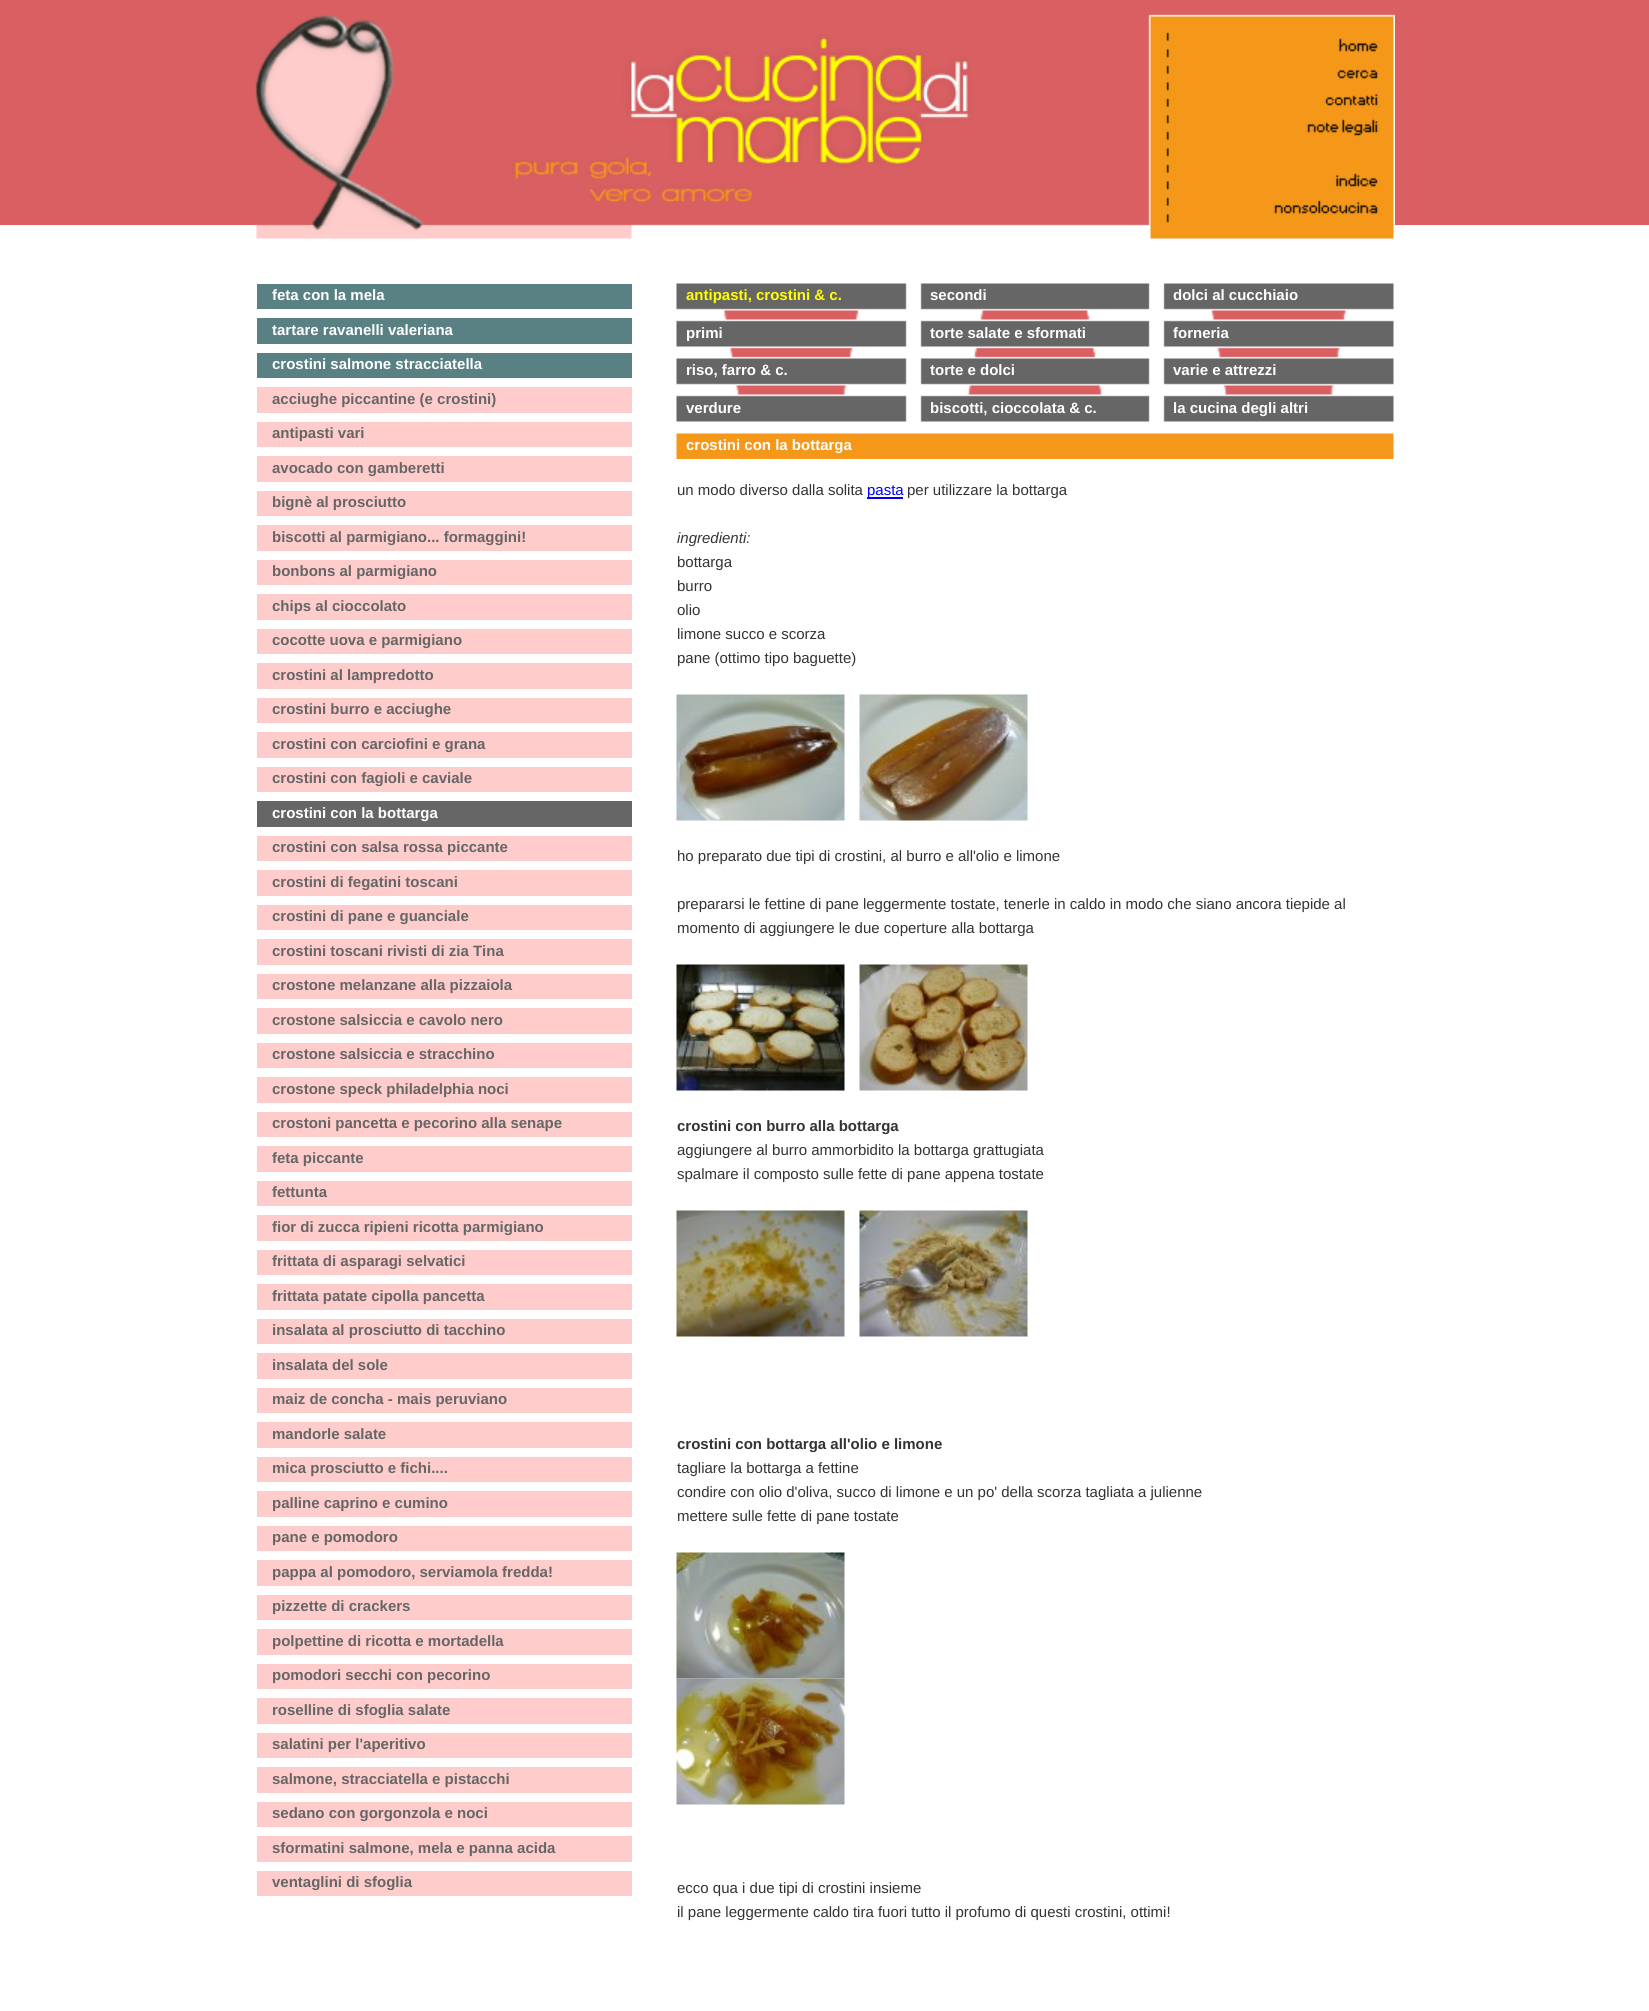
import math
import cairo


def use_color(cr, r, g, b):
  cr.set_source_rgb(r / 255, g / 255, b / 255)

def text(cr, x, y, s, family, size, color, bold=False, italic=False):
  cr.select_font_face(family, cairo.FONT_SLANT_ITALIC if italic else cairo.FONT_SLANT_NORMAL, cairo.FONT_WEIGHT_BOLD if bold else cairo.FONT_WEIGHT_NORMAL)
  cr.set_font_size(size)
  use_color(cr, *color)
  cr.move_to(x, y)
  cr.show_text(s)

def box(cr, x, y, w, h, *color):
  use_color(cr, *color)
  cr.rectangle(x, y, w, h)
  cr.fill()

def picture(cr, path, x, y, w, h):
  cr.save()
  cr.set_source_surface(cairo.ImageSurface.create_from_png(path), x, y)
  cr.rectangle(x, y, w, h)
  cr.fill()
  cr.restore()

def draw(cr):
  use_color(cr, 255, 255, 255)
  cr.paint()
  box(cr, 0, 0, 1649, 225, 217, 95, 98)
  picture(cr, "img_01.png", 255, 14, 1140, 225)
  picture(cr, "img_02.png", 676, 283, 718, 176)
  box(cr, 257, 284, 375, 25, 89, 129, 132)
  box(cr, 257, 318, 375, 26, 89, 129, 132)
  box(cr, 257, 353, 375, 25, 89, 129, 132)
  box(cr, 257, 387, 375, 26, 255, 204, 204)
  box(cr, 257, 422, 375, 25, 255, 204, 204)
  box(cr, 257, 456, 375, 26, 255, 204, 204)
  box(cr, 257, 491, 375, 25, 255, 204, 204)
  box(cr, 257, 525, 375, 26, 255, 204, 204)
  box(cr, 257, 560, 375, 25, 255, 204, 204)
  box(cr, 257, 594, 375, 26, 255, 204, 204)
  box(cr, 257, 629, 375, 25, 255, 204, 204)
  box(cr, 257, 663, 375, 26, 255, 204, 204)
  box(cr, 257, 698, 375, 25, 255, 204, 204)
  box(cr, 257, 732, 375, 26, 255, 204, 204)
  box(cr, 257, 767, 375, 25, 255, 204, 204)
  box(cr, 257, 801, 375, 26, 102, 102, 102)
  box(cr, 257, 836, 375, 25, 255, 204, 204)
  box(cr, 257, 870, 375, 26, 255, 204, 204)
  box(cr, 257, 905, 375, 25, 255, 204, 204)
  box(cr, 257, 939, 375, 26, 255, 204, 204)
  box(cr, 257, 974, 375, 25, 255, 204, 204)
  box(cr, 257, 1008, 375, 26, 255, 204, 204)
  box(cr, 257, 1043, 375, 25, 255, 204, 204)
  box(cr, 257, 1077, 375, 26, 255, 204, 204)
  box(cr, 257, 1112, 375, 25, 255, 204, 204)
  box(cr, 257, 1146, 375, 26, 255, 204, 204)
  box(cr, 257, 1181, 375, 25, 255, 204, 204)
  box(cr, 257, 1215, 375, 26, 255, 204, 204)
  box(cr, 257, 1250, 375, 25, 255, 204, 204)
  box(cr, 257, 1284, 375, 26, 255, 204, 204)
  box(cr, 257, 1319, 375, 25, 255, 204, 204)
  box(cr, 257, 1353, 375, 26, 255, 204, 204)
  box(cr, 257, 1388, 375, 25, 255, 204, 204)
  box(cr, 257, 1422, 375, 26, 255, 204, 204)
  box(cr, 257, 1457, 375, 25, 255, 204, 204)
  box(cr, 257, 1491, 375, 26, 255, 204, 204)
  box(cr, 257, 1526, 375, 25, 255, 204, 204)
  box(cr, 257, 1560, 375, 26, 255, 204, 204)
  box(cr, 257, 1595, 375, 25, 255, 204, 204)
  box(cr, 257, 1629, 375, 26, 255, 204, 204)
  box(cr, 257, 1664, 375, 25, 255, 204, 204)
  box(cr, 257, 1698, 375, 26, 255, 204, 204)
  box(cr, 257, 1733, 375, 25, 255, 204, 204)
  box(cr, 257, 1767, 375, 26, 255, 204, 204)
  box(cr, 257, 1802, 375, 25, 255, 204, 204)
  box(cr, 257, 1836, 375, 26, 255, 204, 204)
  box(cr, 257, 1871, 375, 25, 255, 204, 204)
  box(cr, 867, 497, 36, 2, 0, 0, 255)
  picture(cr, "img_03.png", 676, 694, 169, 127)
  picture(cr, "img_04.png", 859, 694, 169, 127)
  picture(cr, "img_05.png", 676, 964, 169, 127)
  picture(cr, "img_06.png", 859, 964, 169, 127)
  picture(cr, "img_07.png", 676, 1210, 169, 127)
  picture(cr, "img_08.png", 859, 1210, 169, 127)
  picture(cr, "img_09.png", 676, 1552, 169, 127)
  picture(cr, "img_10.png", 676, 1678, 169, 127)
  text(cr, 272, 300, "feta con la mela", "Liberation Sans", 15, (255, 255, 255), bold=True)
  text(cr, 272, 335, "tartare ravanelli valeriana", "Liberation Sans", 15, (255, 255, 255), bold=True)
  text(cr, 272, 369, "crostini salmone stracciatella", "Liberation Sans", 15, (255, 255, 255), bold=True)
  text(cr, 686, 300, "antipasti, crostini & c.", "Liberation Sans", 15, (255, 255, 0), bold=True)
  text(cr, 930, 300, "secondi", "Liberation Sans", 15, (255, 255, 255), bold=True)
  text(cr, 1173, 300, "dolci al cucchiaio", "Liberation Sans", 15, (255, 255, 255), bold=True)
  text(cr, 686, 338, "primi", "Liberation Sans", 15, (255, 255, 255), bold=True)
  text(cr, 930, 338, "torte salate e sformati", "Liberation Sans", 15, (255, 255, 255), bold=True)
  text(cr, 1173, 338, "forneria", "Liberation Sans", 15, (255, 255, 255), bold=True)
  text(cr, 686, 375, "riso, farro & c.", "Liberation Sans", 15, (255, 255, 255), bold=True)
  text(cr, 930, 375, "torte e dolci", "Liberation Sans", 15, (255, 255, 255), bold=True)
  text(cr, 1173, 375, "varie e attrezzi", "Liberation Sans", 15, (255, 255, 255), bold=True)
  text(cr, 686, 413, "verdure", "Liberation Sans", 15, (255, 255, 255), bold=True)
  text(cr, 930, 413, "biscotti, cioccolata & c.", "Liberation Sans", 15, (255, 255, 255), bold=True)
  text(cr, 1173, 413, "la cucina degli altri", "Liberation Sans", 15, (255, 255, 255), bold=True)
  text(cr, 272, 404, "acciughe piccantine (e crostini)", "Liberation Sans", 15, (102, 102, 102), bold=True)
  text(cr, 272, 438, "antipasti vari", "Liberation Sans", 15, (102, 102, 102), bold=True)
  text(cr, 272, 473, "avocado con gamberetti", "Liberation Sans", 15, (102, 102, 102), bold=True)
  text(cr, 272, 507, "bignè al prosciutto", "Liberation Sans", 15, (102, 102, 102), bold=True)
  text(cr, 272, 542, "biscotti al parmigiano... formaggini!", "Liberation Sans", 15, (102, 102, 102), bold=True)
  text(cr, 272, 576, "bonbons al parmigiano", "Liberation Sans", 15, (102, 102, 102), bold=True)
  text(cr, 272, 611, "chips al cioccolato", "Liberation Sans", 15, (102, 102, 102), bold=True)
  text(cr, 272, 645, "cocotte uova e parmigiano", "Liberation Sans", 15, (102, 102, 102), bold=True)
  text(cr, 272, 680, "crostini al lampredotto", "Liberation Sans", 15, (102, 102, 102), bold=True)
  text(cr, 272, 714, "crostini burro e acciughe", "Liberation Sans", 15, (102, 102, 102), bold=True)
  text(cr, 272, 749, "crostini con carciofini e grana", "Liberation Sans", 15, (102, 102, 102), bold=True)
  text(cr, 272, 783, "crostini con fagioli e caviale", "Liberation Sans", 15, (102, 102, 102), bold=True)
  text(cr, 272, 818, "crostini con la bottarga", "Liberation Sans", 15, (255, 255, 255), bold=True)
  text(cr, 272, 852, "crostini con salsa rossa piccante", "Liberation Sans", 15, (102, 102, 102), bold=True)
  text(cr, 272, 887, "crostini di fegatini toscani", "Liberation Sans", 15, (102, 102, 102), bold=True)
  text(cr, 272, 921, "crostini di pane e guanciale", "Liberation Sans", 15, (102, 102, 102), bold=True)
  text(cr, 272, 956, "crostini toscani rivisti di zia Tina", "Liberation Sans", 15, (102, 102, 102), bold=True)
  text(cr, 272, 990, "crostone melanzane alla pizzaiola", "Liberation Sans", 15, (102, 102, 102), bold=True)
  text(cr, 272, 1025, "crostone salsiccia e cavolo nero", "Liberation Sans", 15, (102, 102, 102), bold=True)
  text(cr, 272, 1059, "crostone salsiccia e stracchino", "Liberation Sans", 15, (102, 102, 102), bold=True)
  text(cr, 272, 1094, "crostone speck philadelphia noci", "Liberation Sans", 15, (102, 102, 102), bold=True)
  text(cr, 272, 1128, "crostoni pancetta e pecorino alla senape", "Liberation Sans", 15, (102, 102, 102), bold=True)
  text(cr, 272, 1163, "feta piccante", "Liberation Sans", 15, (102, 102, 102), bold=True)
  text(cr, 272, 1197, "fettunta", "Liberation Sans", 15, (102, 102, 102), bold=True)
  text(cr, 272, 1232, "fior di zucca ripieni ricotta parmigiano", "Liberation Sans", 15, (102, 102, 102), bold=True)
  text(cr, 272, 1266, "frittata di asparagi selvatici", "Liberation Sans", 15, (102, 102, 102), bold=True)
  text(cr, 272, 1301, "frittata patate cipolla pancetta", "Liberation Sans", 15, (102, 102, 102), bold=True)
  text(cr, 272, 1335, "insalata al prosciutto di tacchino", "Liberation Sans", 15, (102, 102, 102), bold=True)
  text(cr, 272, 1370, "insalata del sole", "Liberation Sans", 15, (102, 102, 102), bold=True)
  text(cr, 272, 1404, "maiz de concha - mais peruviano", "Liberation Sans", 15, (102, 102, 102), bold=True)
  text(cr, 272, 1439, "mandorle salate", "Liberation Sans", 15, (102, 102, 102), bold=True)
  text(cr, 272, 1473, "mica prosciutto e fichi....", "Liberation Sans", 15, (102, 102, 102), bold=True)
  text(cr, 272, 1508, "palline caprino e cumino", "Liberation Sans", 15, (102, 102, 102), bold=True)
  text(cr, 272, 1542, "pane e pomodoro", "Liberation Sans", 15, (102, 102, 102), bold=True)
  text(cr, 272, 1577, "pappa al pomodoro, serviamola fredda!", "Liberation Sans", 15, (102, 102, 102), bold=True)
  text(cr, 272, 1611, "pizzette di crackers", "Liberation Sans", 15, (102, 102, 102), bold=True)
  text(cr, 272, 1646, "polpettine di ricotta e mortadella", "Liberation Sans", 15, (102, 102, 102), bold=True)
  text(cr, 272, 1680, "pomodori secchi con pecorino", "Liberation Sans", 15, (102, 102, 102), bold=True)
  text(cr, 272, 1715, "roselline di sfoglia salate", "Liberation Sans", 15, (102, 102, 102), bold=True)
  text(cr, 272, 1749, "salatini per l'aperitivo", "Liberation Sans", 15, (102, 102, 102), bold=True)
  text(cr, 272, 1784, "salmone, stracciatella e pistacchi", "Liberation Sans", 15, (102, 102, 102), bold=True)
  text(cr, 272, 1818, "sedano con gorgonzola e noci", "Liberation Sans", 15, (102, 102, 102), bold=True)
  text(cr, 272, 1853, "sformatini salmone, mela e panna acida", "Liberation Sans", 15, (102, 102, 102), bold=True)
  text(cr, 272, 1887, "ventaglini di sfoglia", "Liberation Sans", 15, (102, 102, 102), bold=True)
  text(cr, 686, 450, "crostini con la bottarga", "Liberation Sans", 15, (255, 255, 255), bold=True)
  text(cr, 677, 495, "un modo diverso dalla solita", "Liberation Sans", 15, (51, 51, 51))
  text(cr, 867, 495, "pasta", "Liberation Sans", 15, (0, 0, 255))
  text(cr, 907, 495, "per utilizzare la bottarga", "Liberation Sans", 15, (51, 51, 51))
  text(cr, 677, 543, "ingredienti:", "Liberation Sans", 15, (51, 51, 51), italic=True)
  text(cr, 677, 567, "bottarga", "Liberation Sans", 15, (51, 51, 51))
  text(cr, 677, 591, "burro", "Liberation Sans", 15, (51, 51, 51))
  text(cr, 677, 615, "olio", "Liberation Sans", 15, (51, 51, 51))
  text(cr, 677, 639, "limone succo e scorza", "Liberation Sans", 15, (51, 51, 51))
  text(cr, 677, 663, "pane (ottimo tipo baguette)", "Liberation Sans", 15, (51, 51, 51))
  text(cr, 677, 861, "ho preparato due tipi di crostini, al burro e all'olio e limone", "Liberation Sans", 15, (51, 51, 51))
  text(cr, 677, 909, "prepararsi le fettine di pane leggermente tostate, tenerle in caldo in modo che siano ancora tiepide al", "Liberation Sans", 15, (51, 51, 51))
  text(cr, 677, 933, "momento di aggiungere le due coperture alla bottarga", "Liberation Sans", 15, (51, 51, 51))
  text(cr, 677, 1131, "crostini con burro alla bottarga", "Liberation Sans", 15, (51, 51, 51), bold=True)
  text(cr, 677, 1155, "aggiungere al burro ammorbidito la bottarga grattugiata", "Liberation Sans", 15, (51, 51, 51))
  text(cr, 677, 1179, "spalmare il composto sulle fette di pane appena tostate", "Liberation Sans", 15, (51, 51, 51))
  text(cr, 677, 1449, "crostini con bottarga all'olio e limone", "Liberation Sans", 15, (51, 51, 51), bold=True)
  text(cr, 677, 1473, "tagliare la bottarga a fettine", "Liberation Sans", 15, (51, 51, 51))
  text(cr, 677, 1497, "condire con olio d'oliva, succo di limone e un po' della scorza tagliata a julienne", "Liberation Sans", 15, (51, 51, 51))
  text(cr, 677, 1521, "mettere sulle fette di pane tostate", "Liberation Sans", 15, (51, 51, 51))
  text(cr, 677, 1893, "ecco qua i due tipi di crostini insieme", "Liberation Sans", 15, (51, 51, 51))
  text(cr, 677, 1917, "il pane leggermente caldo tira fuori tutto il profumo di questi crostini, ottimi!", "Liberation Sans", 15, (51, 51, 51))


surface = cairo.ImageSurface(cairo.FORMAT_RGB24, 1649, 2011)
cr = cairo.Context(surface)
options = cairo.FontOptions()
options.set_hint_metrics(cairo.HINT_METRICS_OFF)
options.set_hint_style(cairo.HINT_STYLE_NONE)
cr.set_font_options(options)
cr.set_miter_limit(4)
draw(cr)
surface.write_to_png("out.png")
